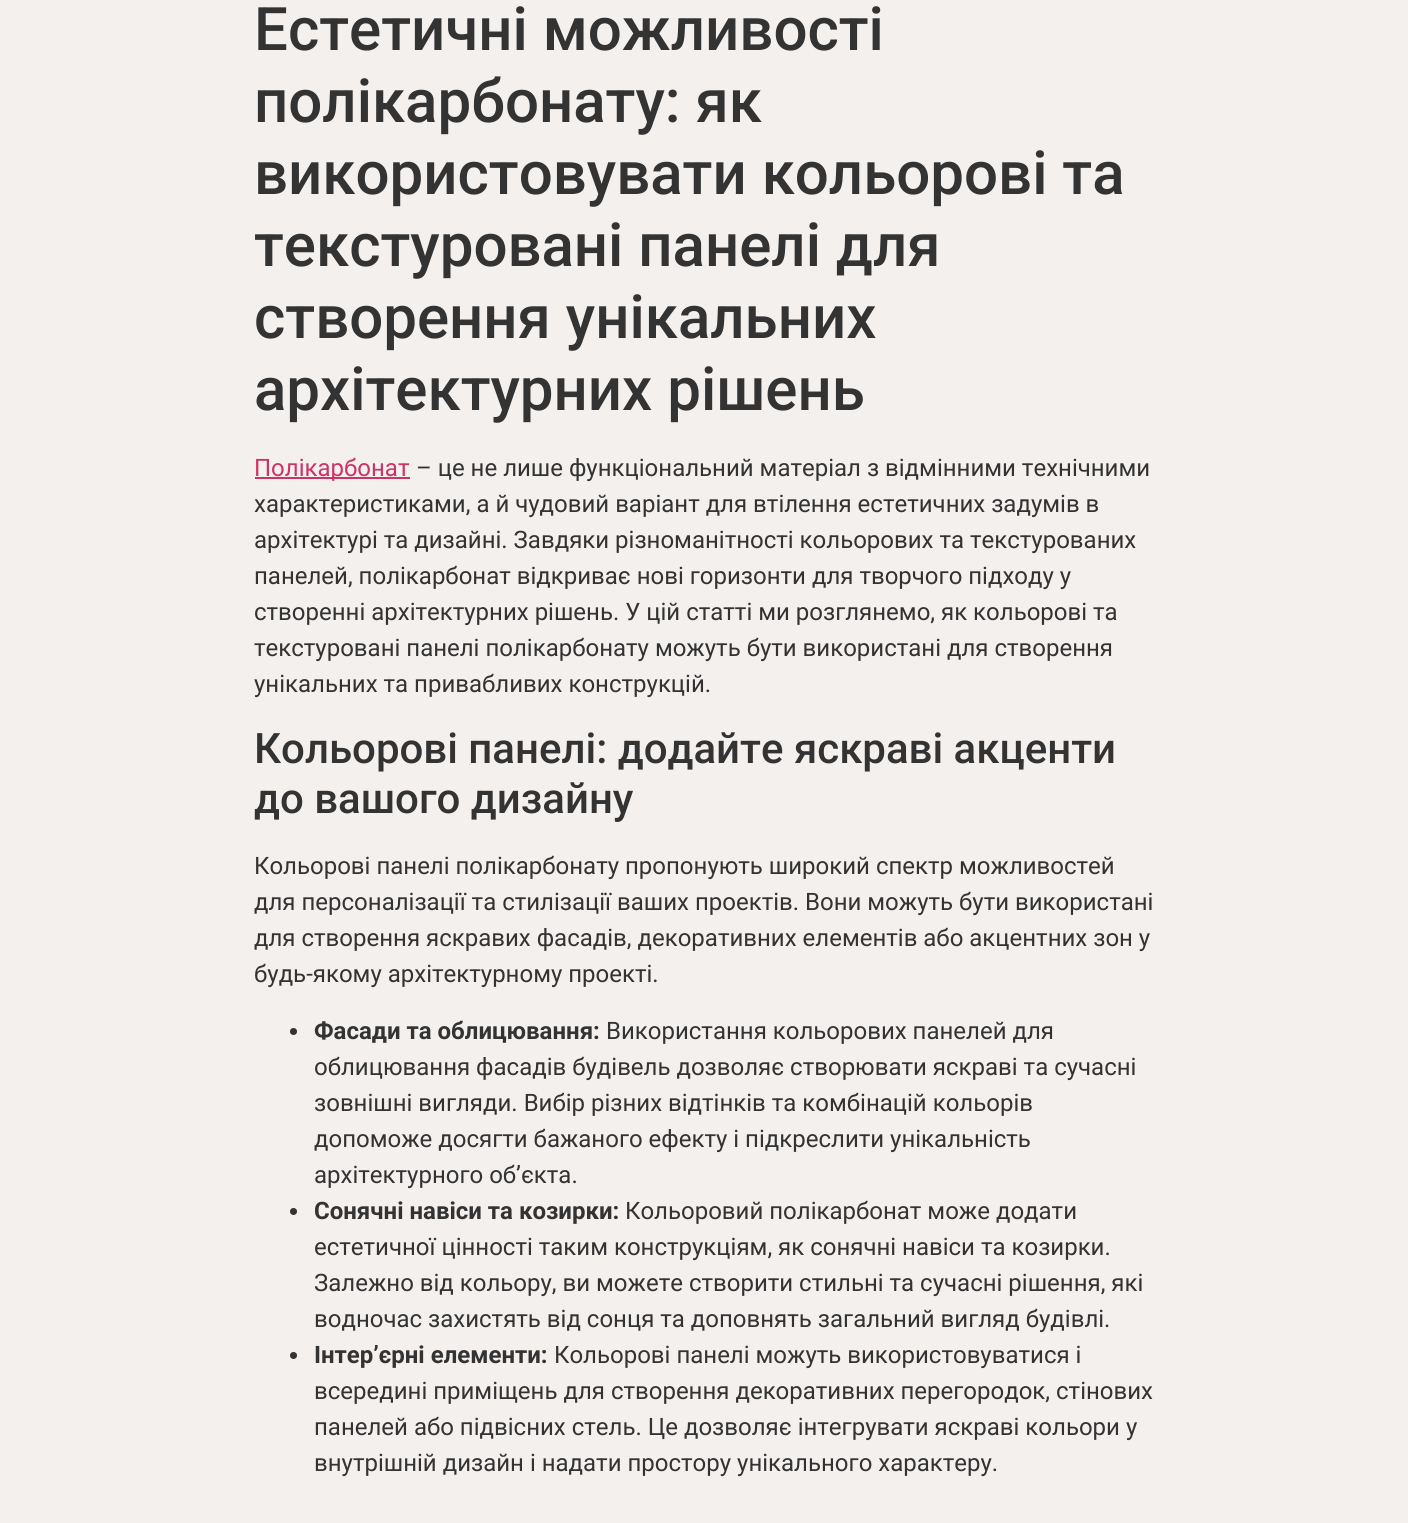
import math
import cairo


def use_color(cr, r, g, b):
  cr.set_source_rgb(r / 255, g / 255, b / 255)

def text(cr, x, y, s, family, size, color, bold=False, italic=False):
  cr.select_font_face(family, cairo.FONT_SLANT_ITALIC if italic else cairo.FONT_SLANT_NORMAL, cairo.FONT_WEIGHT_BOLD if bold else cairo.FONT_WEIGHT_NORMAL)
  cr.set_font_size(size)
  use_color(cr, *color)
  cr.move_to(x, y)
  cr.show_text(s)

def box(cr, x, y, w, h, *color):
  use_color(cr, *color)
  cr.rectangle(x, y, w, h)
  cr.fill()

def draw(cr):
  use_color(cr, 244, 240, 238)
  cr.paint()
  box(cr, 255, 477, 155, 2, 204, 51, 102)
  use_color(cr, 51, 51, 51)
  cr.arc(293.5, 1031.5, 3.5, 0, 2 * math.pi)
  cr.fill()
  cr.arc(293.5, 1211.5, 3.5, 0, 2 * math.pi)
  cr.fill()
  cr.arc(293.5, 1355.5, 3.5, 0, 2 * math.pi)
  cr.fill()
  text(cr, 254, 50, "Естетичні можливості", "Roboto Medium", 60, (51, 51, 51))
  text(cr, 254, 122, "полікарбонату: як", "Roboto Medium", 60, (51, 51, 51))
  text(cr, 254, 194, "використовувати кольорові та", "Roboto Medium", 60, (51, 51, 51))
  text(cr, 254, 266, "текстуровані панелі для", "Roboto Medium", 60, (51, 51, 51))
  text(cr, 254, 338, "створення унікальних", "Roboto Medium", 60, (51, 51, 51))
  text(cr, 254, 410, "архітектурних рішень", "Roboto Medium", 60, (51, 51, 51))
  text(cr, 254, 476, "Полікарбонат", "Roboto", 24, (204, 51, 102))
  text(cr, 416, 476, "– це не лише функціональний матеріал з відмінними технічними", "Roboto", 24, (51, 51, 51))
  text(cr, 254, 512, "характеристиками, а й чудовий варіант для втілення естетичних задумів в", "Roboto", 24, (51, 51, 51))
  text(cr, 254, 548, "архітектурі та дизайні. Завдяки різноманітності кольорових та текстурованих", "Roboto", 24, (51, 51, 51))
  text(cr, 254, 584, "панелей, полікарбонат відкриває нові горизонти для творчого підходу у", "Roboto", 24, (51, 51, 51))
  text(cr, 254, 620, "створенні архітектурних рішень. У цій статті ми розглянемо, як кольорові та", "Roboto", 24, (51, 51, 51))
  text(cr, 254, 656, "текстуровані панелі полікарбонату можуть бути використані для створення", "Roboto", 24, (51, 51, 51))
  text(cr, 254, 692, "унікальних та привабливих конструкцій.", "Roboto", 24, (51, 51, 51))
  text(cr, 254, 763, "Кольорові панелі: додайте яскраві акценти", "Roboto Medium", 42, (51, 51, 51))
  text(cr, 254, 813, "до вашого дизайну", "Roboto Medium", 42, (51, 51, 51))
  text(cr, 254, 874, "Кольорові панелі полікарбонату пропонують широкий спектр можливостей", "Roboto", 24, (51, 51, 51))
  text(cr, 254, 910, "для персоналізації та стилізації ваших проектів. Вони можуть бути використані", "Roboto", 24, (51, 51, 51))
  text(cr, 254, 946, "для створення яскравих фасадів, декоративних елементів або акцентних зон у", "Roboto", 24, (51, 51, 51))
  text(cr, 254, 982, "будь-якому архітектурному проекті.", "Roboto", 24, (51, 51, 51))
  text(cr, 314, 1039, "Фасади та облицювання:", "Roboto", 24, (51, 51, 51), bold=True)
  text(cr, 606, 1039, "Використання кольорових панелей для", "Roboto", 24, (51, 51, 51))
  text(cr, 314, 1075, "облицювання фасадів будівель дозволяє створювати яскраві та сучасні", "Roboto", 24, (51, 51, 51))
  text(cr, 314, 1111, "зовнішні вигляди. Вибір різних відтінків та комбінацій кольорів", "Roboto", 24, (51, 51, 51))
  text(cr, 314, 1147, "допоможе досягти бажаного ефекту і підкреслити унікальність", "Roboto", 24, (51, 51, 51))
  text(cr, 314, 1183, "архітектурного об’єкта.", "Roboto", 24, (51, 51, 51))
  text(cr, 314, 1219, "Сонячні навіси та козирки:", "Roboto", 24, (51, 51, 51), bold=True)
  text(cr, 625, 1219, "Кольоровий полікарбонат може додати", "Roboto", 24, (51, 51, 51))
  text(cr, 314, 1255, "естетичної цінності таким конструкціям, як сонячні навіси та козирки.", "Roboto", 24, (51, 51, 51))
  text(cr, 314, 1291, "Залежно від кольору, ви можете створити стильні та сучасні рішення, які", "Roboto", 24, (51, 51, 51))
  text(cr, 314, 1327, "водночас захистять від сонця та доповнять загальний вигляд будівлі.", "Roboto", 24, (51, 51, 51))
  text(cr, 314, 1363, "Інтер’єрні елементи:", "Roboto", 24, (51, 51, 51), bold=True)
  text(cr, 554, 1363, "Кольорові панелі можуть використовуватися і", "Roboto", 24, (51, 51, 51))
  text(cr, 314, 1399, "всередині приміщень для створення декоративних перегородок, стінових", "Roboto", 24, (51, 51, 51))
  text(cr, 314, 1435, "панелей або підвісних стель. Це дозволяє інтегрувати яскраві кольори у", "Roboto", 24, (51, 51, 51))
  text(cr, 314, 1471, "внутрішній дизайн і надати простору унікального характеру.", "Roboto", 24, (51, 51, 51))


surface = cairo.ImageSurface(cairo.FORMAT_RGB24, 1408, 1523)
cr = cairo.Context(surface)
options = cairo.FontOptions()
options.set_hint_metrics(cairo.HINT_METRICS_OFF)
options.set_hint_style(cairo.HINT_STYLE_NONE)
cr.set_font_options(options)
cr.set_miter_limit(4)
draw(cr)
surface.write_to_png("out.png")
